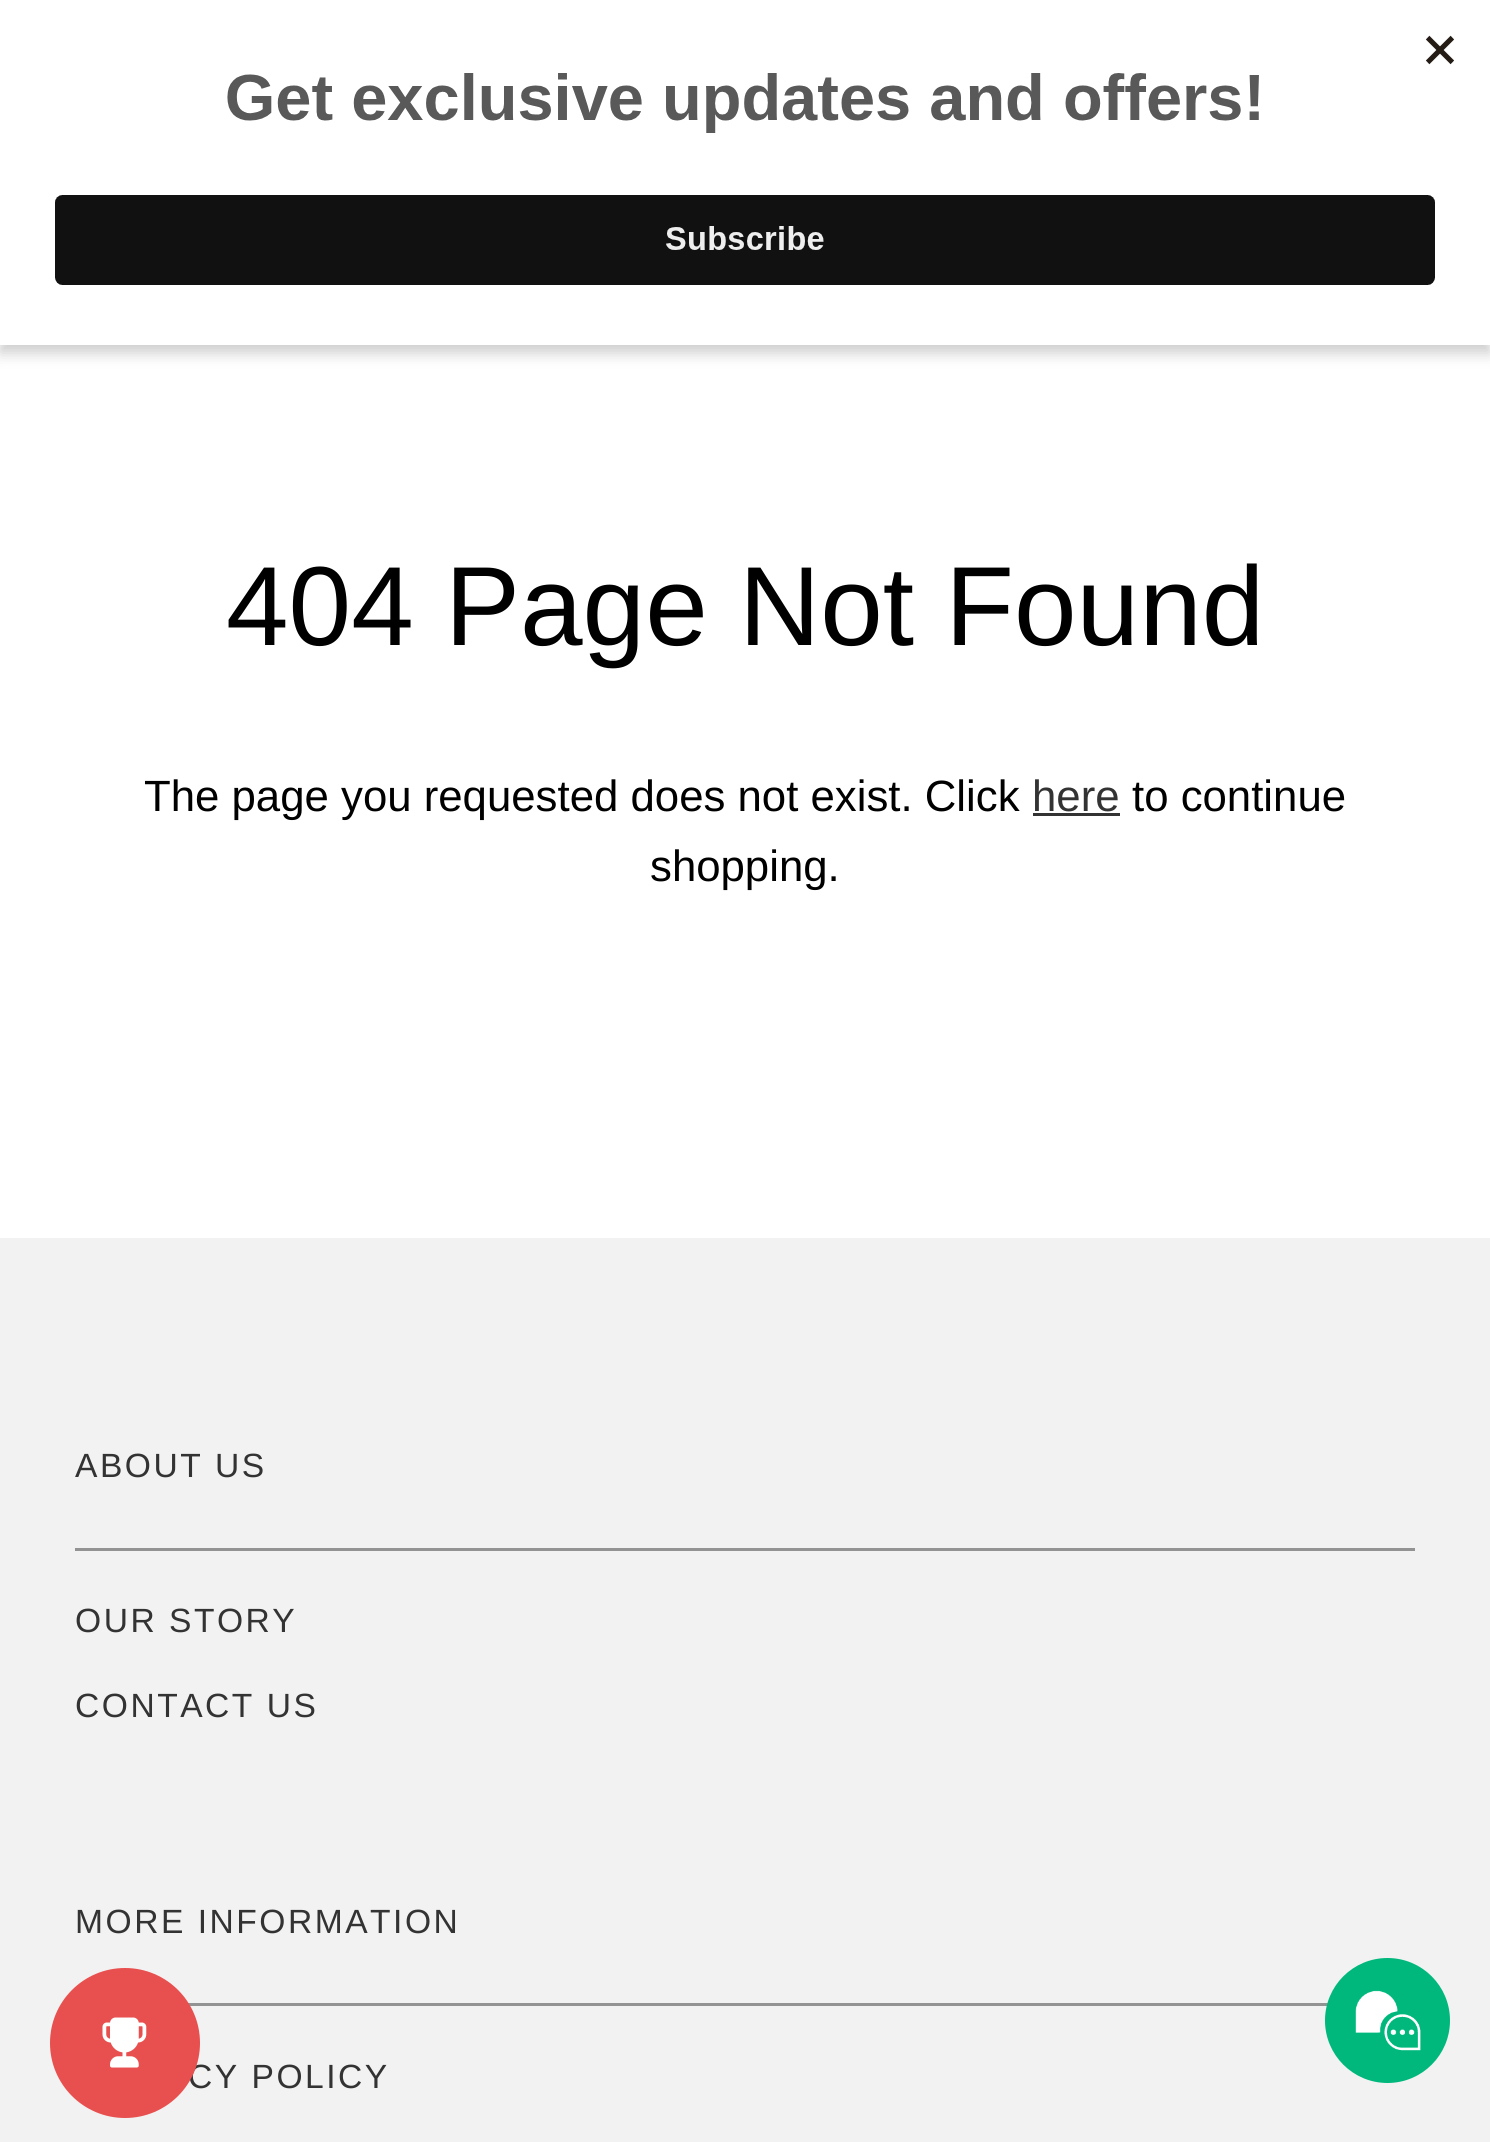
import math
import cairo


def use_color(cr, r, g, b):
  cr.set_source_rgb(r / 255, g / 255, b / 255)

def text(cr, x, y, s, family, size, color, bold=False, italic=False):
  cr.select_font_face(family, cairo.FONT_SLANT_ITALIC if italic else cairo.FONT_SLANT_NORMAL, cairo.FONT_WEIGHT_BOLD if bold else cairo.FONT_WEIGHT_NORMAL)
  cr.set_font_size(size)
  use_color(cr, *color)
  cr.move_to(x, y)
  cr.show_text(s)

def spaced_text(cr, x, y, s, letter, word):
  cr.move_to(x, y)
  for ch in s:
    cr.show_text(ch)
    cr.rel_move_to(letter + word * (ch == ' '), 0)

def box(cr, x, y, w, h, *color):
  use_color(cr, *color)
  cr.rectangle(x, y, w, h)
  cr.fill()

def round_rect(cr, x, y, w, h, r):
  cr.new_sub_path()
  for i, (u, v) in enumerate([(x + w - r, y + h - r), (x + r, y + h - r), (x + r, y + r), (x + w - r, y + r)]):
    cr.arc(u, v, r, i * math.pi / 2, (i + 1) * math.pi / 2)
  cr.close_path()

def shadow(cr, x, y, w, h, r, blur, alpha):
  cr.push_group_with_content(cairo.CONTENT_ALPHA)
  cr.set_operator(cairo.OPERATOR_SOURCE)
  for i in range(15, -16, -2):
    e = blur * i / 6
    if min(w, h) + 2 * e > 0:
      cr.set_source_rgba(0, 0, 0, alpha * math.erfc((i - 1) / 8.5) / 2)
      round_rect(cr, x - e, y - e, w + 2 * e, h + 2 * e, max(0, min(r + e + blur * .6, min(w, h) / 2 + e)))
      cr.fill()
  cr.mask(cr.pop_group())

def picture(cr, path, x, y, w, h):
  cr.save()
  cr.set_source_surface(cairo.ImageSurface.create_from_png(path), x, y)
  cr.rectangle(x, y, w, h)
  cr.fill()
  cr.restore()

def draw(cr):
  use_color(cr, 255, 255, 255)
  cr.paint()
  use_color(cr, 0, 0, 0)
  shadow(cr, 0, 8, 1490, 345, 0, 7.5, 0.2)
  box(cr, 0, 0, 1490, 345, 255, 255, 255)
  picture(cr, "img_01.png", 55, 35, 1399, 250)
  box(cr, 1033, 813, 87, 3, 51, 51, 51)
  box(cr, 0, 1238, 1490, 904, 242, 242, 242)
  box(cr, 75, 1548, 1340, 3, 147, 147, 147)
  box(cr, 188, 2003, 1140, 3, 147, 147, 147)
  use_color(cr, 0, 184, 124)
  cr.arc(1387.5, 2020.5, 62.5, 0, 2 * math.pi)
  cr.fill()
  picture(cr, "img_02.png", 1355, 1990, 66, 61)
  text(cr, 226, 645, "404 Page Not Found", "Liberation Sans", 112.5, (0, 0, 0))
  text(cr, 144, 811, "The page you requested does not exist. Click", "Liberation Sans", 43.75, (0, 0, 0))
  text(cr, 1032, 811, "here", "Liberation Sans", 43.75, (51, 51, 51))
  text(cr, 1132, 811, "to continue", "Liberation Sans", 43.75, (0, 0, 0))
  text(cr, 650, 881, "shopping.", "Liberation Sans", 43.75, (0, 0, 0))
  cr.set_font_size(33.6)
  use_color(cr, 51, 51, 51)
  spaced_text(cr, 75, 1477, "ABOUT US", 2.5, 0)
  spaced_text(cr, 75, 1632, "OUR STORY", 2.5, 0)
  spaced_text(cr, 75, 1717, "CONTACT US", 2.5, 0)
  spaced_text(cr, 75, 1933, "MORE INFORMATION", 2.5, 0)
  spaced_text(cr, 188, 2088, "CY POLICY", 2.5, 0)
  use_color(cr, 232, 79, 79)
  cr.new_path()
  cr.arc(125, 2043, 75, 0, 2 * math.pi)
  cr.fill()
  picture(cr, "img_03.png", 102, 2017, 45, 51)


surface = cairo.ImageSurface(cairo.FORMAT_RGB24, 1490, 2142)
cr = cairo.Context(surface)
options = cairo.FontOptions()
options.set_hint_metrics(cairo.HINT_METRICS_OFF)
options.set_hint_style(cairo.HINT_STYLE_NONE)
cr.set_font_options(options)
cr.set_miter_limit(4)
draw(cr)
surface.write_to_png("out.png")
